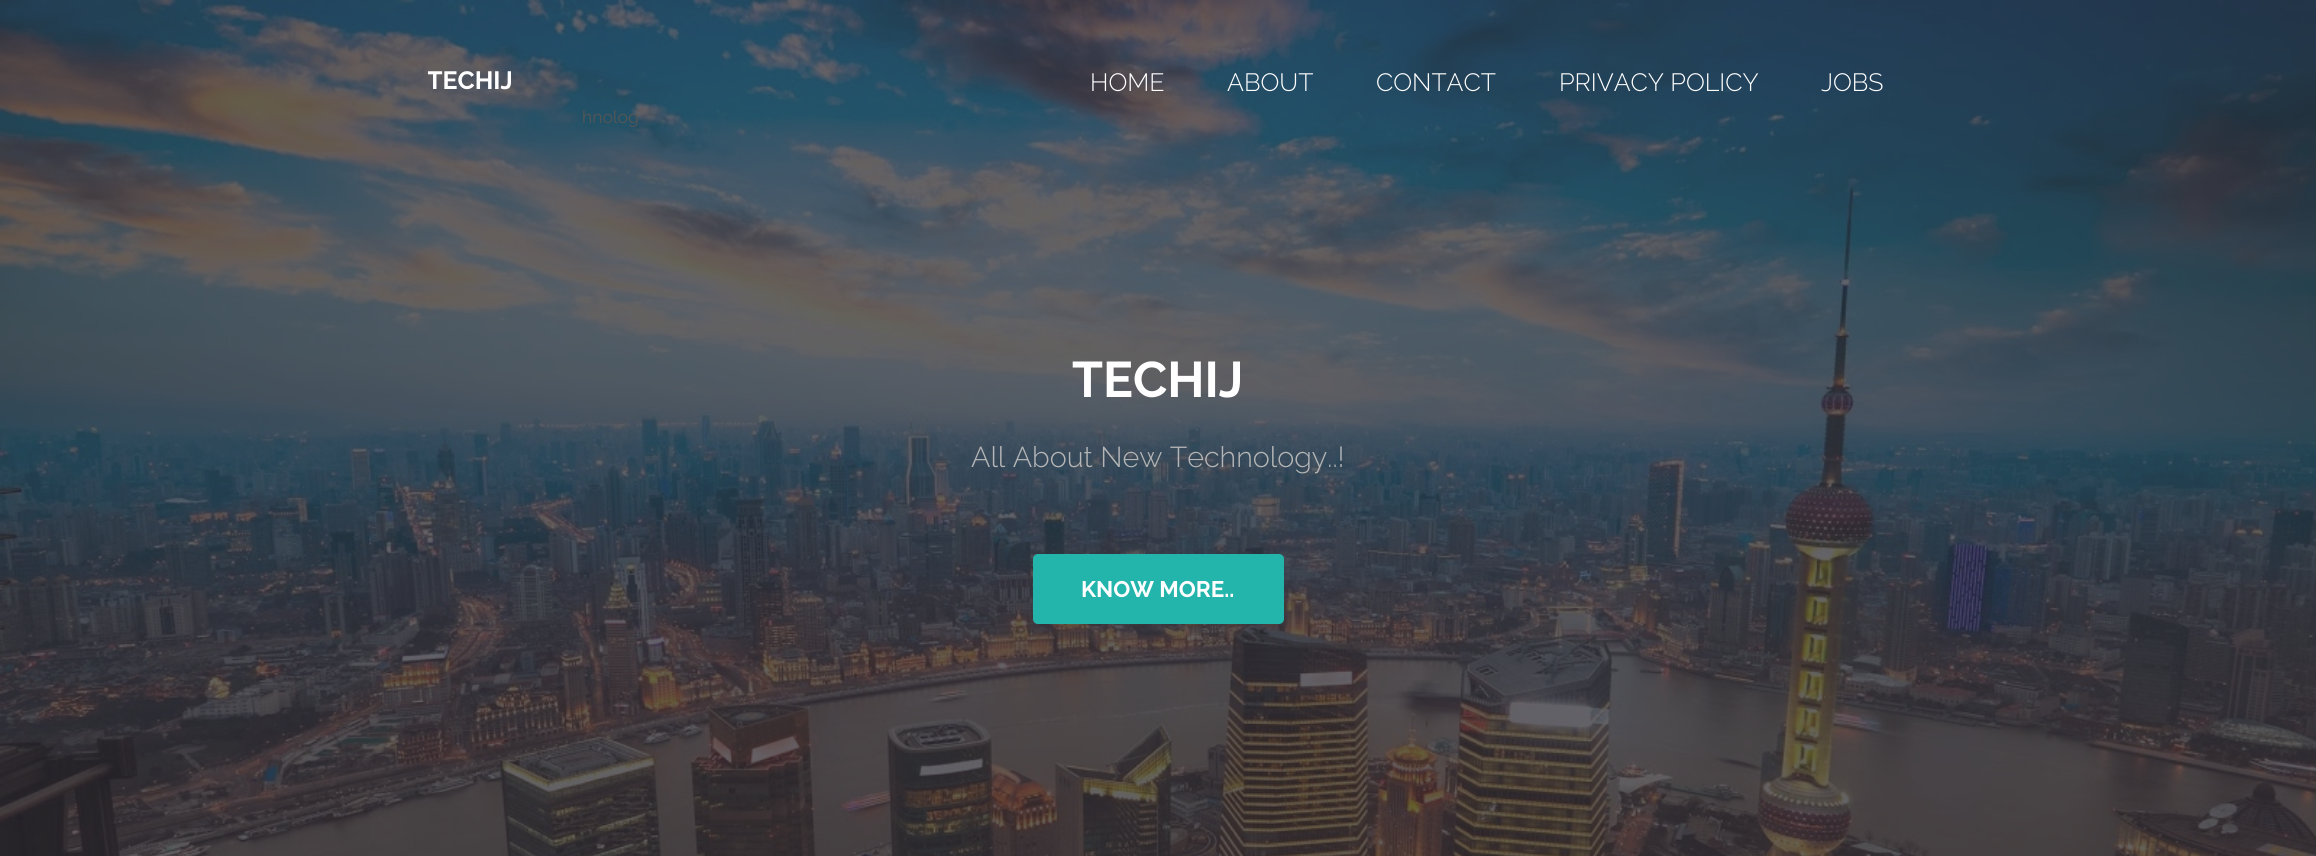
import math
import cairo


def use_color(cr, r, g, b):
  cr.set_source_rgb(r / 255, g / 255, b / 255)

def text(cr, x, y, s, family, size, color, bold=False, italic=False):
  cr.select_font_face(family, cairo.FONT_SLANT_ITALIC if italic else cairo.FONT_SLANT_NORMAL, cairo.FONT_WEIGHT_BOLD if bold else cairo.FONT_WEIGHT_NORMAL)
  cr.set_font_size(size)
  use_color(cr, *color)
  cr.move_to(x, y)
  cr.show_text(s)

def round_rect(cr, x, y, w, h, r):
  cr.new_sub_path()
  for i, (u, v) in enumerate([(x + w - r, y + h - r), (x + r, y + h - r), (x + r, y + r), (x + w - r, y + r)]):
    cr.arc(u, v, r, i * math.pi / 2, (i + 1) * math.pi / 2)
  cr.close_path()

def picture(cr, path, x, y, w, h):
  cr.save()
  cr.set_source_surface(cairo.ImageSurface.create_from_png(path), x, y)
  cr.rectangle(x, y, w, h)
  cr.fill()
  cr.restore()

def draw(cr):
  use_color(cr, 255, 255, 255)
  cr.paint()
  picture(cr, "img_01.png", 0, 0, 2316, 856)
  use_color(cr, 35, 181, 171)
  round_rect(cr, 1033, 554, 251, 70, 5)
  cr.fill()
  cr.save()
  cr.rectangle(428, 68, 233, 100)
  cr.clip()
  text(cr, 427, 89, "TECHIJ", "Raleway", 25, (255, 255, 255), bold=True)
  cr.restore()
  text(cr, 582, 123, "hnolog", "Raleway", 17.5, (85, 85, 85))
  text(cr, 1090, 91, "HOME", "Raleway Light", 25, (255, 255, 255))
  text(cr, 1227, 91, "ABOUT", "Raleway Light", 25, (255, 255, 255))
  text(cr, 1376, 91, "CONTACT", "Raleway Light", 25, (255, 255, 255))
  text(cr, 1559, 91, "PRIVACY POLICY", "Raleway Light", 25, (255, 255, 255))
  text(cr, 1821, 91, "JOBS", "Raleway Light", 25, (255, 255, 255))
  text(cr, 1072, 397, "TECHIJ", "Raleway", 50, (255, 255, 255), bold=True)
  text(cr, 971, 467, "All About New Technology..!", "Raleway Light", 28.75, (182, 182, 182))
  text(cr, 1081, 597, "KNOW MORE..", "Raleway", 22.5, (255, 255, 255), bold=True)


surface = cairo.ImageSurface(cairo.FORMAT_RGB24, 2316, 856)
cr = cairo.Context(surface)
options = cairo.FontOptions()
options.set_hint_metrics(cairo.HINT_METRICS_OFF)
options.set_hint_style(cairo.HINT_STYLE_NONE)
cr.set_font_options(options)
cr.set_miter_limit(4)
draw(cr)
surface.write_to_png("out.png")
